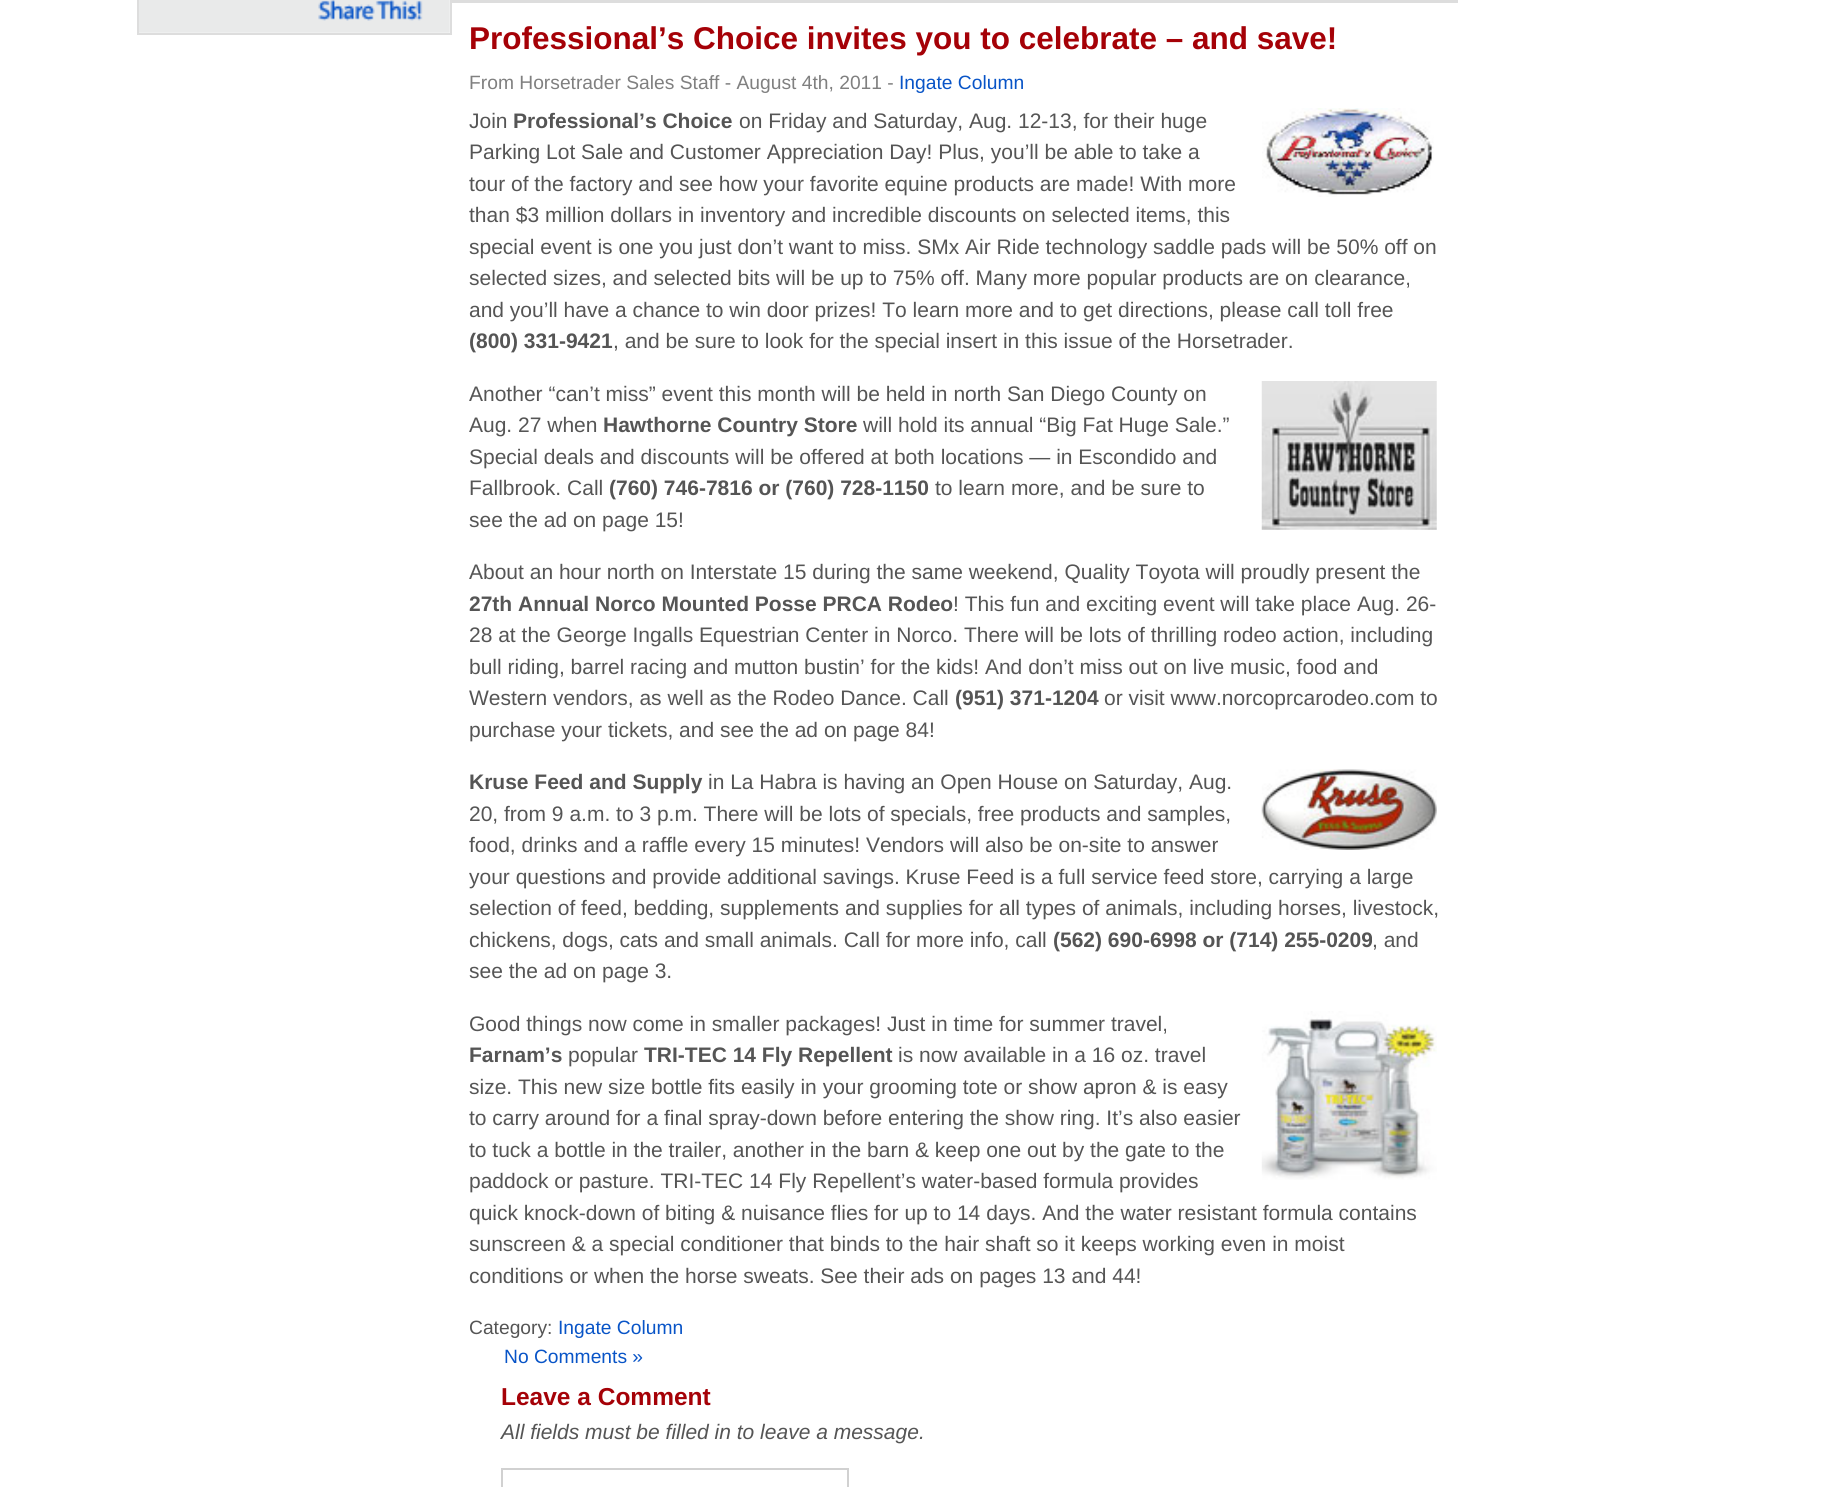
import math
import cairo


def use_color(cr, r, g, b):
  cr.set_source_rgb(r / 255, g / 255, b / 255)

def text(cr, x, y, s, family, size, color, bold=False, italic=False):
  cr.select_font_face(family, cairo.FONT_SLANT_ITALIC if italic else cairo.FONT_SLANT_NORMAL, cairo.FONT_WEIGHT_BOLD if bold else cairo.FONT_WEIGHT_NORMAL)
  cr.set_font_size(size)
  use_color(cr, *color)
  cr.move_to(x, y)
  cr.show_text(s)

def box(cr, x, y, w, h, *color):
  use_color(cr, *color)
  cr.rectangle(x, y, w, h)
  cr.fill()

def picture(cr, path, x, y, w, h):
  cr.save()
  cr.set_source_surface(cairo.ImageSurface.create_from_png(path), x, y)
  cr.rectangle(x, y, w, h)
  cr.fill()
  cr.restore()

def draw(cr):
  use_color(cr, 255, 255, 255)
  cr.paint()
  picture(cr, "img_01.png", 139, 0, 311, 33)
  cr.rectangle(138, -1, 313, 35)
  use_color(cr, 221, 221, 221)
  cr.stroke()
  box(cr, 452, 0, 1006, 3, 221, 221, 221)
  picture(cr, "img_02.png", 1262, 108, 172, 89)
  picture(cr, "img_03.png", 1261, 381, 176, 149)
  picture(cr, "img_04.png", 1261, 769, 176, 81)
  picture(cr, "img_05.png", 1261, 1011, 176, 169)
  cr.rectangle(502, 1469, 346, 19)
  use_color(cr, 209, 209, 209)
  cr.stroke()
  text(cr, 469, 49, "Professional’s Choice invites you to celebrate – and save!", "Liberation Sans", 31.5, (165, 1, 7), bold=True)
  text(cr, 469, 89, "From Horsetrader Sales Staff - August 4th, 2011 -", "Liberation Sans", 19.25, (128, 128, 128))
  text(cr, 899, 89, "Ingate Column", "Liberation Sans", 19.25, (8, 84, 199))
  text(cr, 469, 128, "Join", "Liberation Sans", 21, (85, 85, 85))
  text(cr, 513, 128, "Professional’s Choice", "Liberation Sans", 21, (85, 85, 85), bold=True)
  text(cr, 739, 128, "on Friday and Saturday, Aug. 12-13, for their huge", "Liberation Sans", 21, (85, 85, 85))
  text(cr, 469, 159, "Parking Lot Sale and Customer Appreciation Day! Plus, you’ll be able to take a", "Liberation Sans", 21, (85, 85, 85))
  text(cr, 469, 191, "tour of the factory and see how your favorite equine products are made! With more", "Liberation Sans", 21, (85, 85, 85))
  text(cr, 469, 222, "than $3 million dollars in inventory and incredible discounts on selected items, this", "Liberation Sans", 21, (85, 85, 85))
  text(cr, 469, 254, "special event is one you just don’t want to miss. SMx Air Ride technology saddle pads will be 50% off on", "Liberation Sans", 21, (85, 85, 85))
  text(cr, 469, 285, "selected sizes, and selected bits will be up to 75% off. Many more popular products are on clearance,", "Liberation Sans", 21, (85, 85, 85))
  text(cr, 469, 317, "and you’ll have a chance to win door prizes! To learn more and to get directions, please call toll free", "Liberation Sans", 21, (85, 85, 85))
  text(cr, 469, 348, "(800) 331-9421", "Liberation Sans", 21, (85, 85, 85), bold=True)
  text(cr, 613, 348, ", and be sure to look for the special insert in this issue of the Horsetrader.", "Liberation Sans", 21, (85, 85, 85))
  text(cr, 469, 401, "Another “can’t miss” event this month will be held in north San Diego County on", "Liberation Sans", 21, (85, 85, 85))
  text(cr, 469, 432, "Aug. 27 when", "Liberation Sans", 21, (85, 85, 85))
  text(cr, 603, 432, "Hawthorne Country Store", "Liberation Sans", 21, (85, 85, 85), bold=True)
  text(cr, 863, 432, "will hold its annual “Big Fat Huge Sale.”", "Liberation Sans", 21, (85, 85, 85))
  text(cr, 469, 464, "Special deals and discounts will be offered at both locations — in Escondido and", "Liberation Sans", 21, (85, 85, 85))
  text(cr, 469, 495, "Fallbrook. Call", "Liberation Sans", 21, (85, 85, 85))
  text(cr, 609, 495, "(760) 746-7816 or (760) 728-1150", "Liberation Sans", 21, (85, 85, 85), bold=True)
  text(cr, 935, 495, "to learn more, and be sure to", "Liberation Sans", 21, (85, 85, 85))
  text(cr, 469, 527, "see the ad on page 15!", "Liberation Sans", 21, (85, 85, 85))
  text(cr, 469, 579, "About an hour north on Interstate 15 during the same weekend, Quality Toyota will proudly present the", "Liberation Sans", 21, (85, 85, 85))
  text(cr, 469, 611, "27th Annual Norco Mounted Posse PRCA Rodeo", "Liberation Sans", 21, (85, 85, 85), bold=True)
  text(cr, 953, 611, "! This fun and exciting event will take place Aug. 26-", "Liberation Sans", 21, (85, 85, 85))
  text(cr, 469, 642, "28 at the George Ingalls Equestrian Center in Norco. There will be lots of thrilling rodeo action, including", "Liberation Sans", 21, (85, 85, 85))
  text(cr, 469, 674, "bull riding, barrel racing and mutton bustin’ for the kids! And don’t miss out on live music, food and", "Liberation Sans", 21, (85, 85, 85))
  text(cr, 469, 705, "Western vendors, as well as the Rodeo Dance. Call", "Liberation Sans", 21, (85, 85, 85))
  text(cr, 955, 705, "(951) 371-1204", "Liberation Sans", 21, (85, 85, 85), bold=True)
  text(cr, 1104, 705, "or visit www.norcoprcarodeo.com to", "Liberation Sans", 21, (85, 85, 85))
  text(cr, 469, 737, "purchase your tickets, and see the ad on page 84!", "Liberation Sans", 21, (85, 85, 85))
  text(cr, 469, 789, "Kruse Feed and Supply", "Liberation Sans", 21, (85, 85, 85), bold=True)
  text(cr, 708, 789, "in La Habra is having an Open House on Saturday, Aug.", "Liberation Sans", 21, (85, 85, 85))
  text(cr, 469, 821, "20, from 9 a.m. to 3 p.m. There will be lots of specials, free products and samples,", "Liberation Sans", 21, (85, 85, 85))
  text(cr, 469, 852, "food, drinks and a raffle every 15 minutes! Vendors will also be on-site to answer", "Liberation Sans", 21, (85, 85, 85))
  text(cr, 469, 884, "your questions and provide additional savings. Kruse Feed is a full service feed store, carrying a large", "Liberation Sans", 21, (85, 85, 85))
  text(cr, 469, 915, "selection of feed, bedding, supplements and supplies for all types of animals, including horses, livestock,", "Liberation Sans", 21, (85, 85, 85))
  text(cr, 469, 947, "chickens, dogs, cats and small animals. Call for more info, call", "Liberation Sans", 21, (85, 85, 85))
  text(cr, 1053, 947, "(562) 690-6998 or (714) 255-0209", "Liberation Sans", 21, (85, 85, 85), bold=True)
  text(cr, 1372, 947, ", and", "Liberation Sans", 21, (85, 85, 85))
  text(cr, 469, 978, "see the ad on page 3.", "Liberation Sans", 21, (85, 85, 85))
  text(cr, 469, 1031, "Good things now come in smaller packages! Just in time for summer travel,", "Liberation Sans", 21, (85, 85, 85))
  text(cr, 469, 1062, "Farnam’s", "Liberation Sans", 21, (85, 85, 85), bold=True)
  text(cr, 568, 1062, "popular", "Liberation Sans", 21, (85, 85, 85))
  text(cr, 644, 1062, "TRI-TEC 14 Fly Repellent", "Liberation Sans", 21, (85, 85, 85), bold=True)
  text(cr, 898, 1062, "is now available in a 16 oz. travel", "Liberation Sans", 21, (85, 85, 85))
  text(cr, 469, 1094, "size. This new size bottle fits easily in your grooming tote or show apron & is easy", "Liberation Sans", 21, (85, 85, 85))
  text(cr, 469, 1125, "to carry around for a final spray-down before entering the show ring. It’s also easier", "Liberation Sans", 21, (85, 85, 85))
  text(cr, 469, 1157, "to tuck a bottle in the trailer, another in the barn & keep one out by the gate to the", "Liberation Sans", 21, (85, 85, 85))
  text(cr, 469, 1188, "paddock or pasture. TRI-TEC 14 Fly Repellent’s water-based formula provides", "Liberation Sans", 21, (85, 85, 85))
  text(cr, 469, 1220, "quick knock-down of biting & nuisance flies for up to 14 days. And the water resistant formula contains", "Liberation Sans", 21, (85, 85, 85))
  text(cr, 469, 1251, "sunscreen & a special conditioner that binds to the hair shaft so it keeps working even in moist", "Liberation Sans", 21, (85, 85, 85))
  text(cr, 469, 1283, "conditions or when the horse sweats. See their ads on pages 13 and 44!", "Liberation Sans", 21, (85, 85, 85))
  text(cr, 469, 1334, "Category:", "Liberation Sans", 19.25, (85, 85, 85))
  text(cr, 558, 1334, "Ingate Column", "Liberation Sans", 19.25, (8, 84, 199))
  text(cr, 504, 1363, "No Comments »", "Liberation Sans", 19.25, (8, 84, 199))
  text(cr, 501, 1405, "Leave a Comment", "Liberation Sans", 24.5, (165, 1, 7), bold=True)
  text(cr, 501, 1439, "All fields must be filled in to leave a message.", "Liberation Sans", 21, (85, 85, 85), italic=True)


surface = cairo.ImageSurface(cairo.FORMAT_RGB24, 1830, 1487)
cr = cairo.Context(surface)
options = cairo.FontOptions()
options.set_hint_metrics(cairo.HINT_METRICS_OFF)
options.set_hint_style(cairo.HINT_STYLE_NONE)
cr.set_font_options(options)
cr.set_miter_limit(4)
draw(cr)
surface.write_to_png("out.png")
